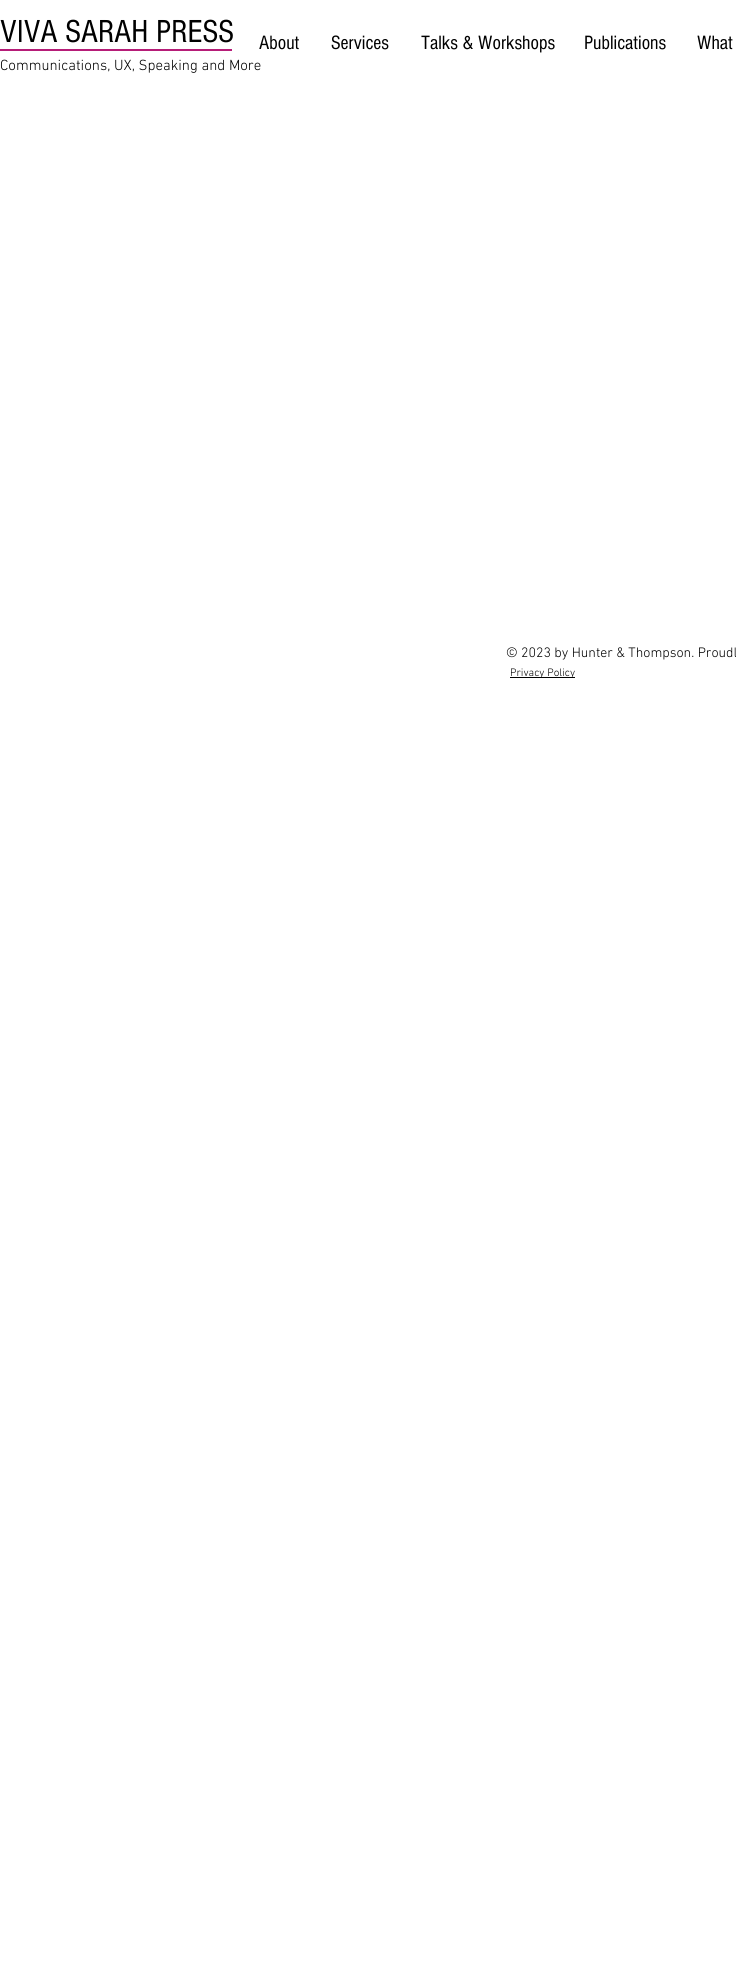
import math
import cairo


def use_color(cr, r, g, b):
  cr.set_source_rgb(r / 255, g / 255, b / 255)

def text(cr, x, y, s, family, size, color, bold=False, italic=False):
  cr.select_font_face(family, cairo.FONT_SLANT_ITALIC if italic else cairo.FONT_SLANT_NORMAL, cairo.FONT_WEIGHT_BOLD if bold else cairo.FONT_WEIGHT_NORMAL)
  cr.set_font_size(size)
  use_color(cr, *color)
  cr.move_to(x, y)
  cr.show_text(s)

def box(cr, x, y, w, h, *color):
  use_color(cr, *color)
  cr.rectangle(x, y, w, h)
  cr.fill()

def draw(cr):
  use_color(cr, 255, 255, 255)
  cr.paint()
  box(cr, 0, 49, 232, 2, 182, 29, 120)
  box(cr, 510, 677, 65, 1, 0, 0, 0)
  text(cr, 0, 42, "VIVA SARAH PRESS", "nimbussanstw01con", 33, (0, 0, 0))
  text(cr, 259, 49, "About", "nimbussanstw01con", 20, (0, 0, 0))
  text(cr, 331, 49, "Services", "nimbussanstw01con", 20, (0, 0, 0))
  text(cr, 421, 49, "Talks & Workshops", "nimbussanstw01con", 20, (0, 0, 0))
  text(cr, 584, 49, "Publications", "nimbussanstw01con", 20, (0, 0, 0))
  text(cr, 697, 49, "What", "nimbussanstw01con", 20, (0, 0, 0))
  text(cr, 0, 70, "Communications, UX, Speaking and More", "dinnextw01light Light", 15, (0, 0, 0))
  text(cr, 506, 657, "© 2023 by Hunter & Thompson. Proudl", "dinnextw01light Light", 14, (0, 0, 0))
  text(cr, 510, 676, "Privacy Policy", "dinnextw01light Light", 11, (0, 0, 0))


surface = cairo.ImageSurface(cairo.FORMAT_RGB24, 736, 1969)
cr = cairo.Context(surface)
options = cairo.FontOptions()
options.set_hint_metrics(cairo.HINT_METRICS_OFF)
options.set_hint_style(cairo.HINT_STYLE_NONE)
cr.set_font_options(options)
cr.set_miter_limit(4)
draw(cr)
surface.write_to_png("out.png")
